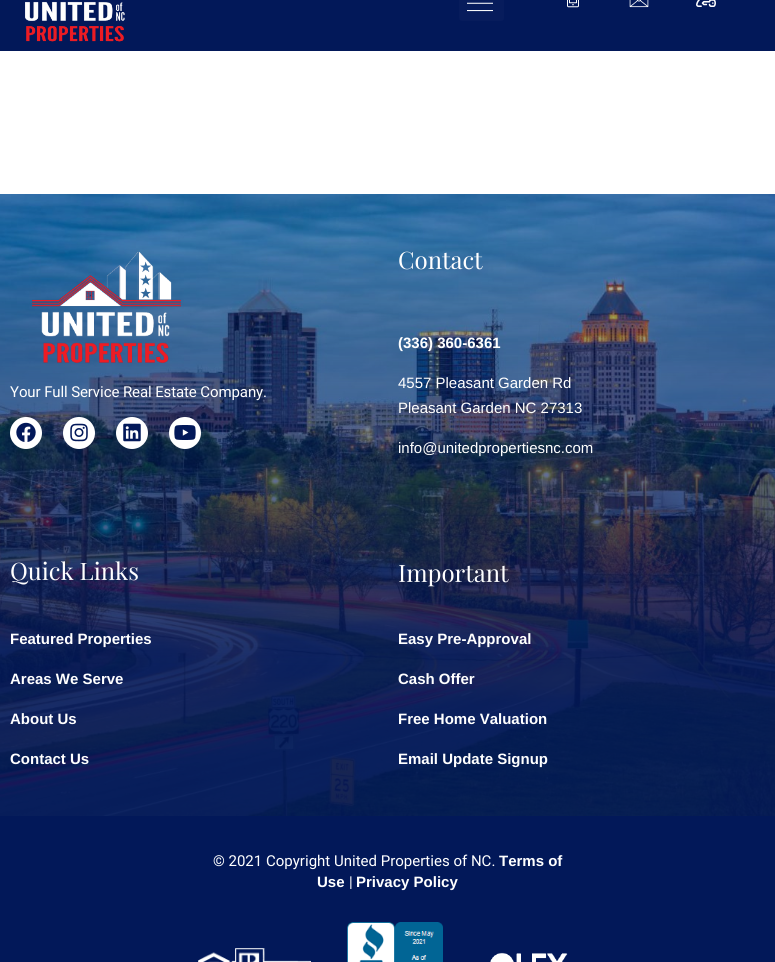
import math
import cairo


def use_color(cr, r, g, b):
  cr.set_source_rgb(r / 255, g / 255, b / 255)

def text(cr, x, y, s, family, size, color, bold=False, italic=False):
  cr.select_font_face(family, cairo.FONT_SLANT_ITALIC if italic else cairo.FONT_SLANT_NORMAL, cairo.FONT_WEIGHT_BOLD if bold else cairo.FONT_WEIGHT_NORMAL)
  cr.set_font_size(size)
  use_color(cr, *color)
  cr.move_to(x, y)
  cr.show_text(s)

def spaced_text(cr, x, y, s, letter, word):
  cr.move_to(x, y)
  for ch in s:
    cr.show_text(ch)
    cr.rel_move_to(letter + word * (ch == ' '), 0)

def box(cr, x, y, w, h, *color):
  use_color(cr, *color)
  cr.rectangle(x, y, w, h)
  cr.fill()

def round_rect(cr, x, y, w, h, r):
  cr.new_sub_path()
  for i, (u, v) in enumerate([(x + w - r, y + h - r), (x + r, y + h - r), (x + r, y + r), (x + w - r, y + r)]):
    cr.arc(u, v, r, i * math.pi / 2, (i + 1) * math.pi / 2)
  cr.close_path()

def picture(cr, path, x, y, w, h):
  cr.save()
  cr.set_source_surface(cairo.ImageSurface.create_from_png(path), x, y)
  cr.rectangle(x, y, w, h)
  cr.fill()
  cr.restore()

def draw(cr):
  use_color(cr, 255, 255, 255)
  cr.paint()
  box(cr, 0, 0, 775, 51, 2, 24, 89)
  picture(cr, "img_01.png", 25, 1, 100, 41)
  use_color(cr, 7, 28, 92)
  round_rect(cr, 459, -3, 45, 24, 3)
  cr.fill()
  picture(cr, "img_02.png", 467, 2, 26, 10)
  picture(cr, "img_03.png", 567, 0, 12, 8)
  picture(cr, "img_04.png", 629, 0, 20, 8)
  picture(cr, "img_05.png", 696, 0, 20, 7)
  picture(cr, "img_06.png", 0, 194, 775, 622)
  picture(cr, "img_07.png", 32, 251, 149, 112)
  use_color(cr, 255, 255, 255)
  cr.arc(26, 433, 16, 0, 2 * math.pi)
  cr.fill()
  picture(cr, "img_08.png", 16, 422, 20, 20)
  cr.arc(79, 433, 16, 0, 2 * math.pi)
  cr.fill()
  picture(cr, "img_09.png", 70, 423, 18, 19)
  cr.arc(132, 433, 16, 0, 2 * math.pi)
  cr.fill()
  picture(cr, "img_10.png", 123, 423, 18, 19)
  cr.arc(185, 433, 16, 0, 2 * math.pi)
  cr.fill()
  picture(cr, "img_11.png", 174, 425, 22, 15)
  box(cr, 0, 816, 775, 146, 2, 24, 89)
  picture(cr, "img_12.png", 198, 948, 113, 14)
  picture(cr, "img_13.png", 347, 922, 96, 40)
  picture(cr, "img_14.png", 490, 952, 78, 10)
  cr.select_font_face("Heebo")
  cr.set_font_size(15)
  use_color(cr, 255, 255, 255)
  spaced_text(cr, 10, 397, "Your Full Service Real Estate Company.", -0.1, 0)
  text(cr, 398, 269, "Contact", "Playfair Display", 24, (255, 255, 255))
  text(cr, 398, 348, "(336) 360-6361", "Liberation Sans", 15, (255, 255, 255), bold=True)
  text(cr, 398, 388, "4557 Pleasant Garden Rd", "Liberation Sans", 15, (255, 255, 255))
  text(cr, 398, 413, "Pleasant Garden NC 27313", "Liberation Sans", 15, (255, 255, 255))
  text(cr, 398, 453, "info@unitedpropertiesnc.com", "Liberation Sans", 15, (255, 255, 255))
  text(cr, 10, 580, "Quick Links", "Playfair Display", 24, (255, 255, 255))
  text(cr, 10, 644, "Featured Properties", "Liberation Sans", 15, (255, 255, 255), bold=True)
  text(cr, 10, 684, "Areas We Serve", "Liberation Sans", 15, (255, 255, 255), bold=True)
  text(cr, 10, 724, "About Us", "Liberation Sans", 15, (255, 255, 255), bold=True)
  text(cr, 10, 764, "Contact Us", "Liberation Sans", 15, (255, 255, 255), bold=True)
  text(cr, 398, 582, "Important", "Playfair Display", 24, (255, 255, 255))
  text(cr, 398, 644, "Easy Pre-Approval", "Liberation Sans", 15, (255, 255, 255), bold=True)
  text(cr, 398, 684, "Cash Offer", "Liberation Sans", 15, (255, 255, 255), bold=True)
  text(cr, 398, 724, "Free Home Valuation", "Liberation Sans", 15, (255, 255, 255), bold=True)
  text(cr, 398, 764, "Email Update Signup", "Liberation Sans", 15, (255, 255, 255), bold=True)
  text(cr, 213, 866, "© 2021 Copyright United Properties of NC.", "Heebo", 15, (255, 255, 255))
  text(cr, 499, 866, "Terms of", "Liberation Sans", 15, (255, 255, 255), bold=True)
  text(cr, 317, 887, "Use", "Liberation Sans", 15, (255, 255, 255), bold=True)
  text(cr, 349, 887, "|", "Heebo", 15, (255, 255, 255))
  text(cr, 356, 887, "Privacy Policy", "Liberation Sans", 15, (255, 255, 255), bold=True)


surface = cairo.ImageSurface(cairo.FORMAT_RGB24, 775, 962)
cr = cairo.Context(surface)
options = cairo.FontOptions()
options.set_hint_metrics(cairo.HINT_METRICS_OFF)
options.set_hint_style(cairo.HINT_STYLE_NONE)
cr.set_font_options(options)
cr.set_miter_limit(4)
draw(cr)
surface.write_to_png("out.png")
